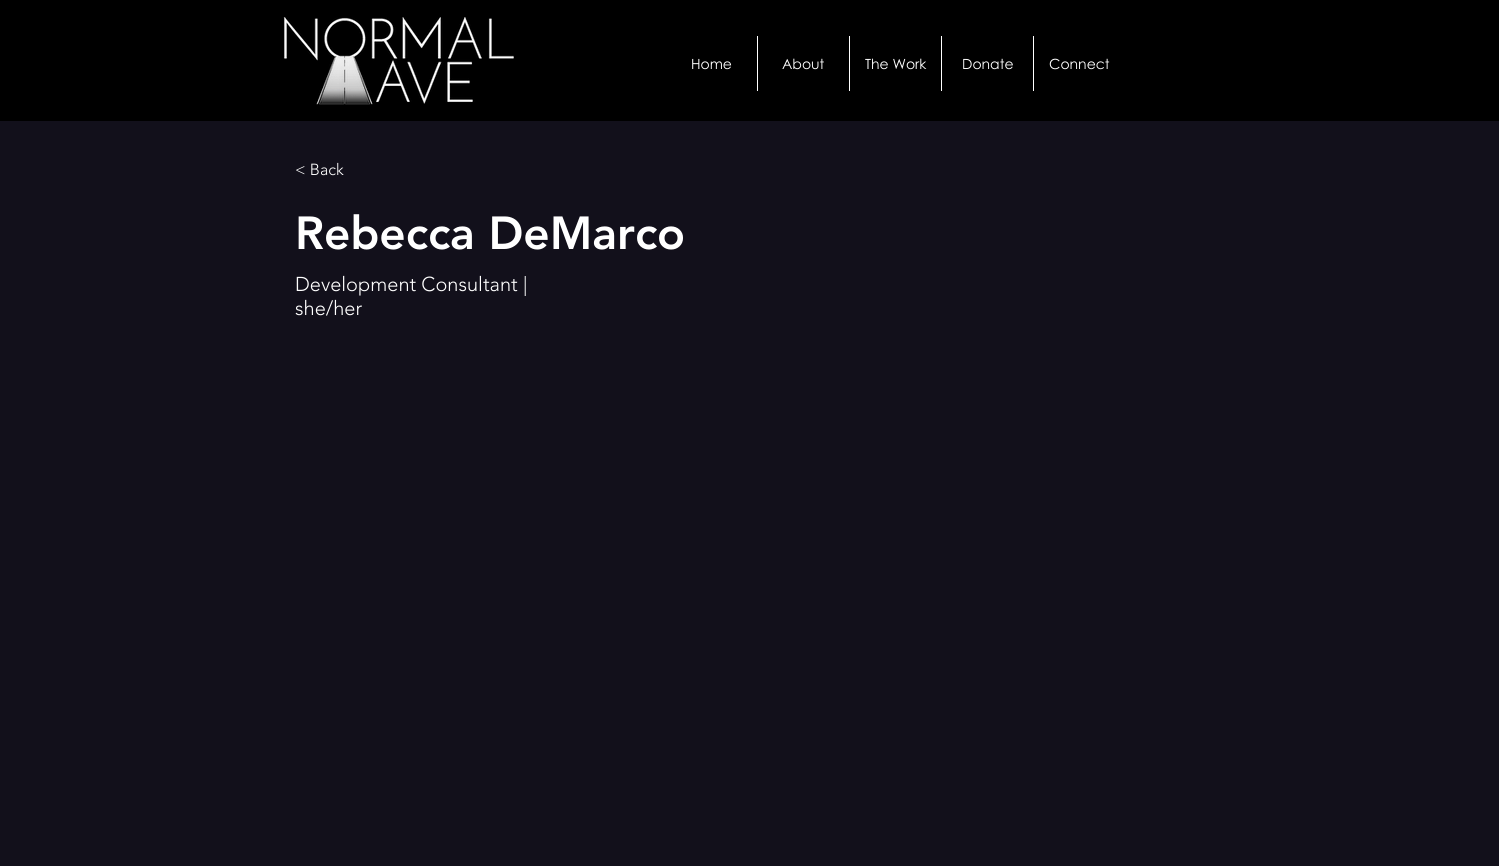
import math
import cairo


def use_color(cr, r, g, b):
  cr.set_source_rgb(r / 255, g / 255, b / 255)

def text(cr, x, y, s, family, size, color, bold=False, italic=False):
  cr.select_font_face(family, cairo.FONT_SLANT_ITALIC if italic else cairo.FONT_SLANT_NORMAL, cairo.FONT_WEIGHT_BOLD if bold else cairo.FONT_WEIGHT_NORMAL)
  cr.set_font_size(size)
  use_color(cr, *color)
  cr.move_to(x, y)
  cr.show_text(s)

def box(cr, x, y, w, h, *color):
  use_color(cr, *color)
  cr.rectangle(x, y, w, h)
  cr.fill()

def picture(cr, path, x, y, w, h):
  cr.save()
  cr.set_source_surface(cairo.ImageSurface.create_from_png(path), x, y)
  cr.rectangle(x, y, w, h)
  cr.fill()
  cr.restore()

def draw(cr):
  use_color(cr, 18, 16, 27)
  cr.paint()
  box(cr, 0, 0, 1499, 121, 0, 0, 0)
  picture(cr, "img_01.png", 283, 17, 231, 88)
  box(cr, 757, 36, 1, 55, 255, 255, 255)
  box(cr, 849, 36, 1, 55, 255, 255, 255)
  box(cr, 941, 36, 1, 55, 255, 255, 255)
  box(cr, 1033, 36, 1, 55, 255, 255, 255)
  text(cr, 691, 69, "Home", "Century Gothic", 14, (255, 255, 255))
  text(cr, 782, 69, "About", "Century Gothic", 14, (255, 255, 255))
  text(cr, 865, 69, "The Work", "Century Gothic", 14, (255, 255, 255))
  text(cr, 962, 69, "Donate", "Century Gothic", 14, (255, 255, 255))
  text(cr, 1049, 69, "Connect", "Century Gothic", 14, (255, 255, 255))
  text(cr, 295, 175, "< Back", "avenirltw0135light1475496 Light", 16, (255, 255, 255))
  text(cr, 295, 249, "Rebecca DeMarco", "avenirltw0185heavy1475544 Black", 46, (255, 255, 255))
  text(cr, 295, 291, "Development Consultant |", "avenirltw0135light1475496 Light", 20, (255, 255, 255))
  text(cr, 295, 315, "she/her", "avenirltw0135light1475496 Light", 20, (255, 255, 255))


surface = cairo.ImageSurface(cairo.FORMAT_RGB24, 1499, 866)
cr = cairo.Context(surface)
options = cairo.FontOptions()
options.set_hint_metrics(cairo.HINT_METRICS_OFF)
options.set_hint_style(cairo.HINT_STYLE_NONE)
cr.set_font_options(options)
cr.set_miter_limit(4)
draw(cr)
surface.write_to_png("out.png")
